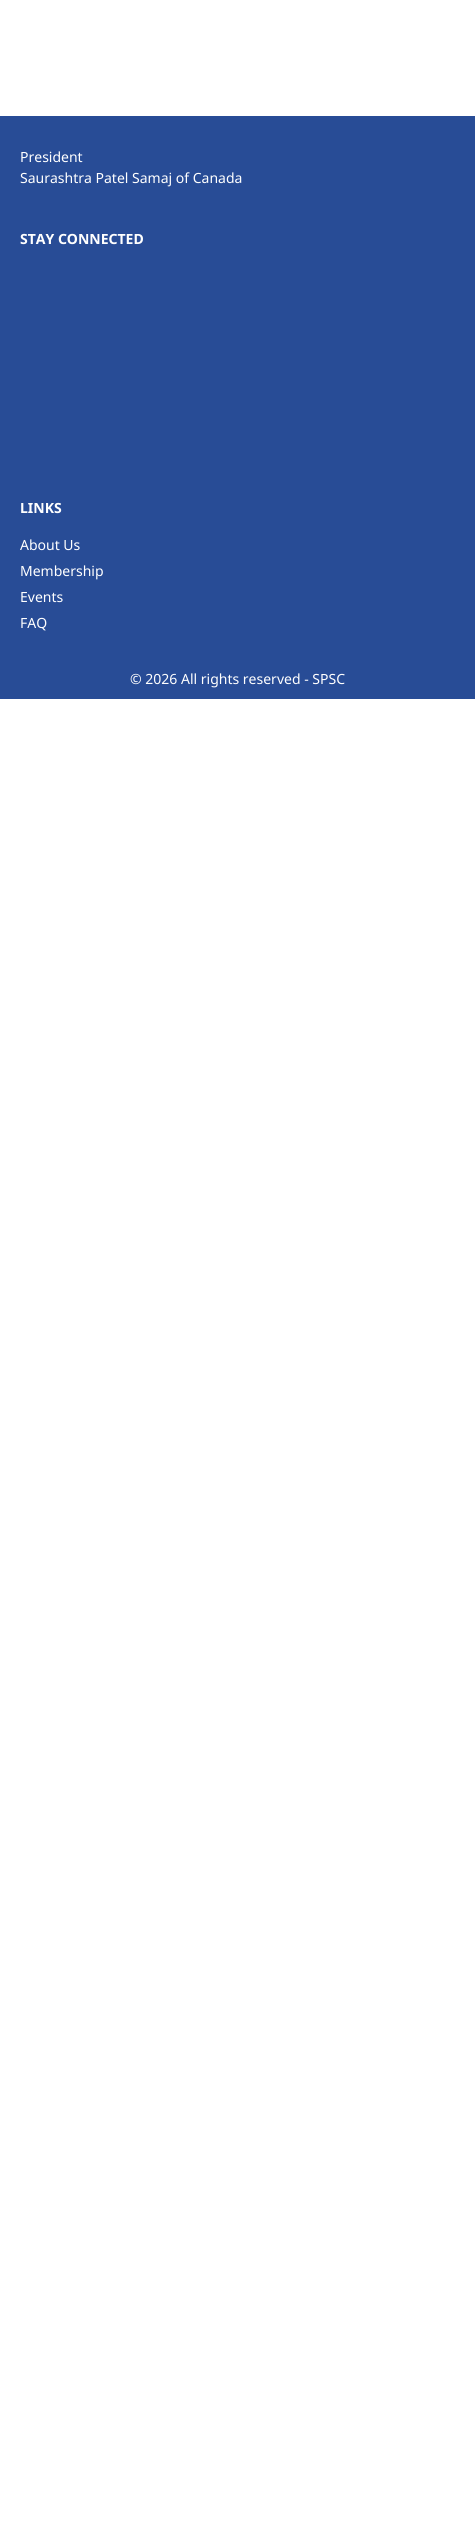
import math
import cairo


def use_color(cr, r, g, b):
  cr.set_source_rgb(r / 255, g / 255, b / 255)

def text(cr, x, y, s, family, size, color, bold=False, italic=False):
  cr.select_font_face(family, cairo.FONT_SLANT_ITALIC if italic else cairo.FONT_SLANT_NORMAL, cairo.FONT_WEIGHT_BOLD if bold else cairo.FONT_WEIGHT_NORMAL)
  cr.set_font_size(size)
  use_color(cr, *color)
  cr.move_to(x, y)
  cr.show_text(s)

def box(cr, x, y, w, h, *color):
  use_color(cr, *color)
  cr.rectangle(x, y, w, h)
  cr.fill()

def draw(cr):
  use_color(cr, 255, 255, 255)
  cr.paint()
  box(cr, 0, 116, 475, 583, 40, 76, 150)
  text(cr, 20, 162, "President", "Noto Sans", 14, (255, 255, 255))
  text(cr, 20, 183, "Saurashtra Patel Samaj of Canada", "Noto Sans", 14, (255, 255, 255))
  text(cr, 20, 244, "STAY CONNECTED", "Noto Sans", 14, (255, 255, 255), bold=True)
  text(cr, 20, 513, "LINKS", "Noto Sans", 14, (255, 255, 255), bold=True)
  text(cr, 20, 550, "About Us", "Noto Sans", 14, (255, 255, 255))
  text(cr, 20, 576, "Membership", "Noto Sans", 14, (255, 255, 255))
  text(cr, 20, 602, "Events", "Noto Sans", 14, (255, 255, 255))
  text(cr, 20, 628, "FAQ", "Noto Sans", 14, (255, 255, 255))
  text(cr, 130, 684, "© 2026 All rights reserved - SPSC", "Noto Sans", 14, (255, 255, 255))


surface = cairo.ImageSurface(cairo.FORMAT_RGB24, 475, 2545)
cr = cairo.Context(surface)
options = cairo.FontOptions()
options.set_hint_metrics(cairo.HINT_METRICS_OFF)
options.set_hint_style(cairo.HINT_STYLE_NONE)
cr.set_font_options(options)
cr.set_miter_limit(4)
draw(cr)
surface.write_to_png("out.png")
